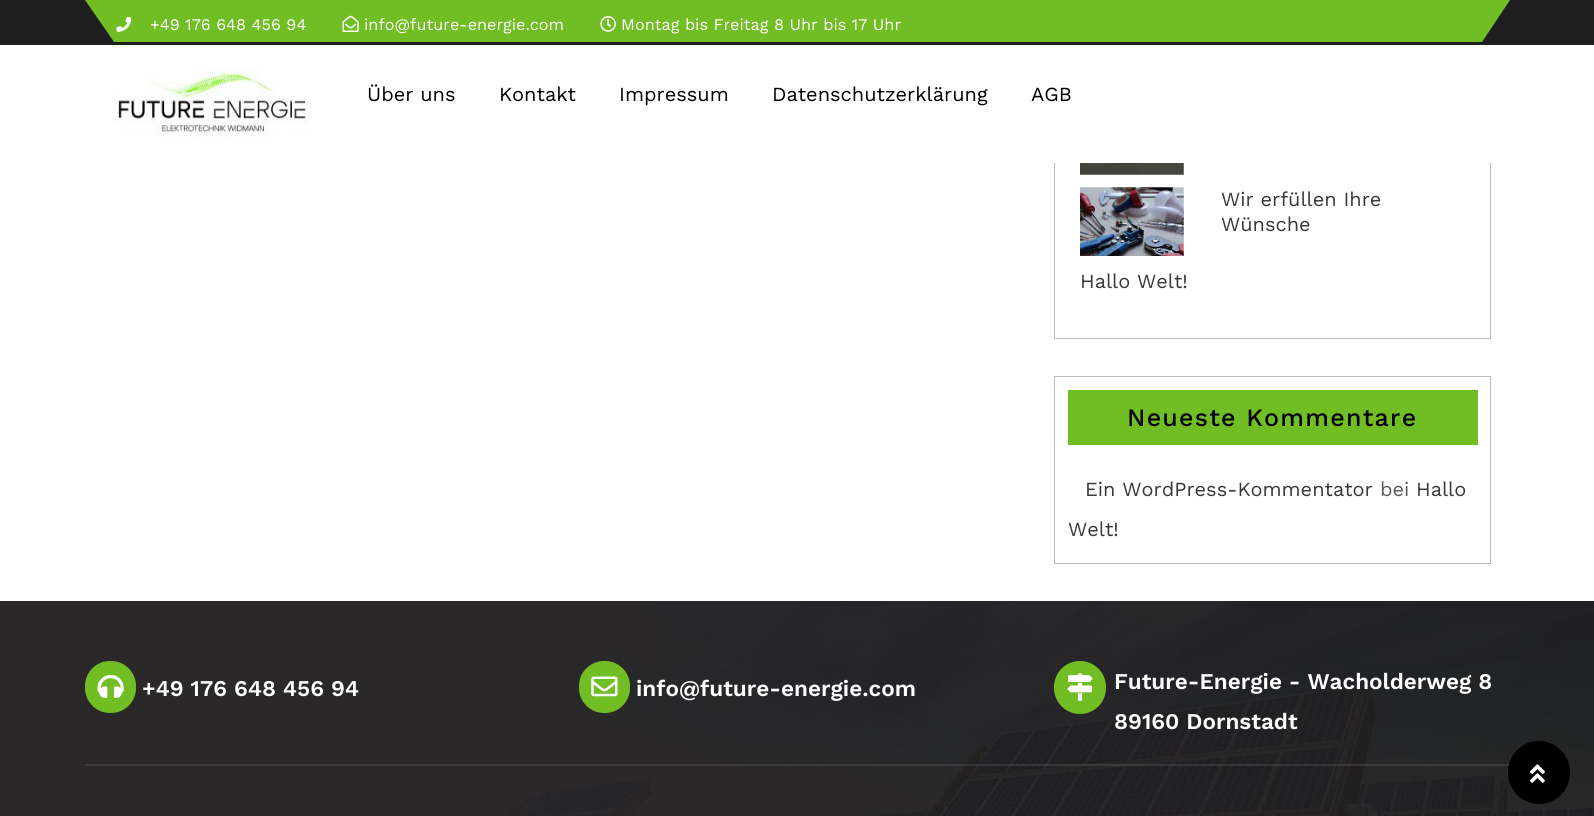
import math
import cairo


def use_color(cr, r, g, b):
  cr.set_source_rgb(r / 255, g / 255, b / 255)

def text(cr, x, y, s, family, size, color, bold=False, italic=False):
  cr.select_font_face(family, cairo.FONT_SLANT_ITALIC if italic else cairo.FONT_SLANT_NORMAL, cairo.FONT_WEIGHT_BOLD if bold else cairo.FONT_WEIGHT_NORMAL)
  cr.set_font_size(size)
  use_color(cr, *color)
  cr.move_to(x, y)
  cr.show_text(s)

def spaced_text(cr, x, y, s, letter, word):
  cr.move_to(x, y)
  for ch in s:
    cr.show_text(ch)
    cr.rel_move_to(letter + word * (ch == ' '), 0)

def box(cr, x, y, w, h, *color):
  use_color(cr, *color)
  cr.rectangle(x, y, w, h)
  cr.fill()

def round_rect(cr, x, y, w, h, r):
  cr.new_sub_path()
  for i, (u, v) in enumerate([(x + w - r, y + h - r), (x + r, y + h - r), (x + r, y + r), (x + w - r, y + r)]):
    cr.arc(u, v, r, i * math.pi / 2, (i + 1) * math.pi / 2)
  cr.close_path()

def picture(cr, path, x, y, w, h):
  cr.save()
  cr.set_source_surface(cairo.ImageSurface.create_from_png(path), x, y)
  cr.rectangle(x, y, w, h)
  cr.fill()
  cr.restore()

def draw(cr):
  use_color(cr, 255, 255, 255)
  cr.paint()
  cr.rectangle(1054.5, 13.5, 436, 325)
  use_color(cr, 187, 187, 187)
  cr.set_line_width(1)
  cr.stroke()
  box(cr, 0, 0, 1594, 45, 31, 30, 30)
  use_color(cr, 113, 190, 36)
  cr.new_path()
  cr.move_to(85, 0)
  cr.line_to(114, 42)
  cr.line_to(1482, 42)
  cr.line_to(1510, 0)
  cr.close_path()
  cr.fill()
  picture(cr, "img_01.png", 116, 16, 16, 16)
  picture(cr, "img_02.png", 342, 15, 17, 17)
  picture(cr, "img_03.png", 600, 16, 16, 16)
  box(cr, 1054, 45, 437, 118, 255, 255, 255)
  picture(cr, "img_04.png", 115, 67, 194, 70)
  picture(cr, "img_05.png", 1080, 163, 104, 12)
  picture(cr, "img_06.png", 1080, 187, 104, 69)
  cr.rectangle(1054.5, 376.5, 436, 187)
  use_color(cr, 187, 187, 187)
  cr.stroke()
  box(cr, 1068, 390, 410, 55, 113, 190, 36)
  picture(cr, "img_07.png", 0, 601, 1594, 215)
  cr.set_source_rgba(0.969, 0.969, 1, 0.1)
  cr.rectangle(85, 764, 1425, 1)
  cr.fill()
  use_color(cr, 113, 190, 36)
  round_rect(cr, 85, 661, 51, 52, 25)
  cr.fill()
  picture(cr, "img_08.png", 97, 674, 27, 24)
  round_rect(cr, 579, 661, 51, 52, 25)
  cr.fill()
  picture(cr, "img_09.png", 591, 676, 27, 21)
  round_rect(cr, 1054, 661, 52, 53, 26)
  cr.fill()
  picture(cr, "img_10.png", 1067, 673, 26, 28)
  cr.set_source_rgba(0.969, 0.969, 1, 0.1)
  cr.rectangle(85, 765, 1425, 1)
  cr.fill()
  use_color(cr, 0, 0, 0)
  round_rect(cr, 1508, 741, 62, 63, 31)
  cr.fill()
  picture(cr, "img_11.png", 1530, 764, 15, 19)
  text(cr, 150, 30, "+49 176 648 456 94", "Work Sans", 16.25, (255, 255, 255))
  text(cr, 364, 30, "info@future-energie.com", "Work Sans", 16.25, (255, 255, 255))
  text(cr, 621, 30, "Montag bis Freitag 8 Uhr bis 17 Uhr", "Work Sans", 16.25, (255, 255, 255))
  text(cr, 367, 101, "Über uns", "Work Sans", 20, (0, 0, 0))
  text(cr, 499, 101, "Kontakt", "Work Sans", 20, (0, 0, 0))
  text(cr, 619, 101, "Impressum", "Work Sans", 20, (0, 0, 0))
  text(cr, 772, 101, "Datenschutzerklärung", "Work Sans", 20, (0, 0, 0))
  text(cr, 1031, 101, "AGB", "Work Sans", 20, (0, 0, 0))
  text(cr, 1221, 206, "Wir erfüllen Ihre", "Work Sans", 20, (56, 56, 56))
  text(cr, 1221, 231, "Wünsche", "Work Sans", 20, (56, 56, 56))
  text(cr, 1080, 288, "Hallo Welt!", "Work Sans", 20, (56, 56, 56))
  cr.select_font_face("Work Sans Medium")
  cr.set_font_size(25)
  use_color(cr, 0, 0, 0)
  spaced_text(cr, 1127, 426, "Neueste Kommentare", 1.25, 0)
  text(cr, 1085, 496, "Ein WordPress-Kommentator", "Work Sans", 20, (56, 56, 56))
  text(cr, 1380, 496, "bei", "Work Sans", 20, (91, 91, 91))
  text(cr, 1416, 496, "Hallo", "Work Sans", 20, (56, 56, 56))
  text(cr, 1068, 536, "Welt!", "Work Sans", 20, (56, 56, 56))
  text(cr, 142, 696, "+49 176 648 456 94", "Work Sans SemiBold", 22.5, (255, 255, 255))
  text(cr, 636, 696, "info@future-energie.com", "Work Sans SemiBold", 22.5, (255, 255, 255))
  text(cr, 1114, 689, "Future-Energie - Wacholderweg 8", "Work Sans SemiBold", 22.5, (255, 255, 255))
  text(cr, 1114, 729, "89160 Dornstadt", "Work Sans SemiBold", 22.5, (255, 255, 255))


surface = cairo.ImageSurface(cairo.FORMAT_RGB24, 1594, 816)
cr = cairo.Context(surface)
options = cairo.FontOptions()
options.set_hint_metrics(cairo.HINT_METRICS_OFF)
options.set_hint_style(cairo.HINT_STYLE_NONE)
cr.set_font_options(options)
cr.set_miter_limit(4)
draw(cr)
surface.write_to_png("out.png")
